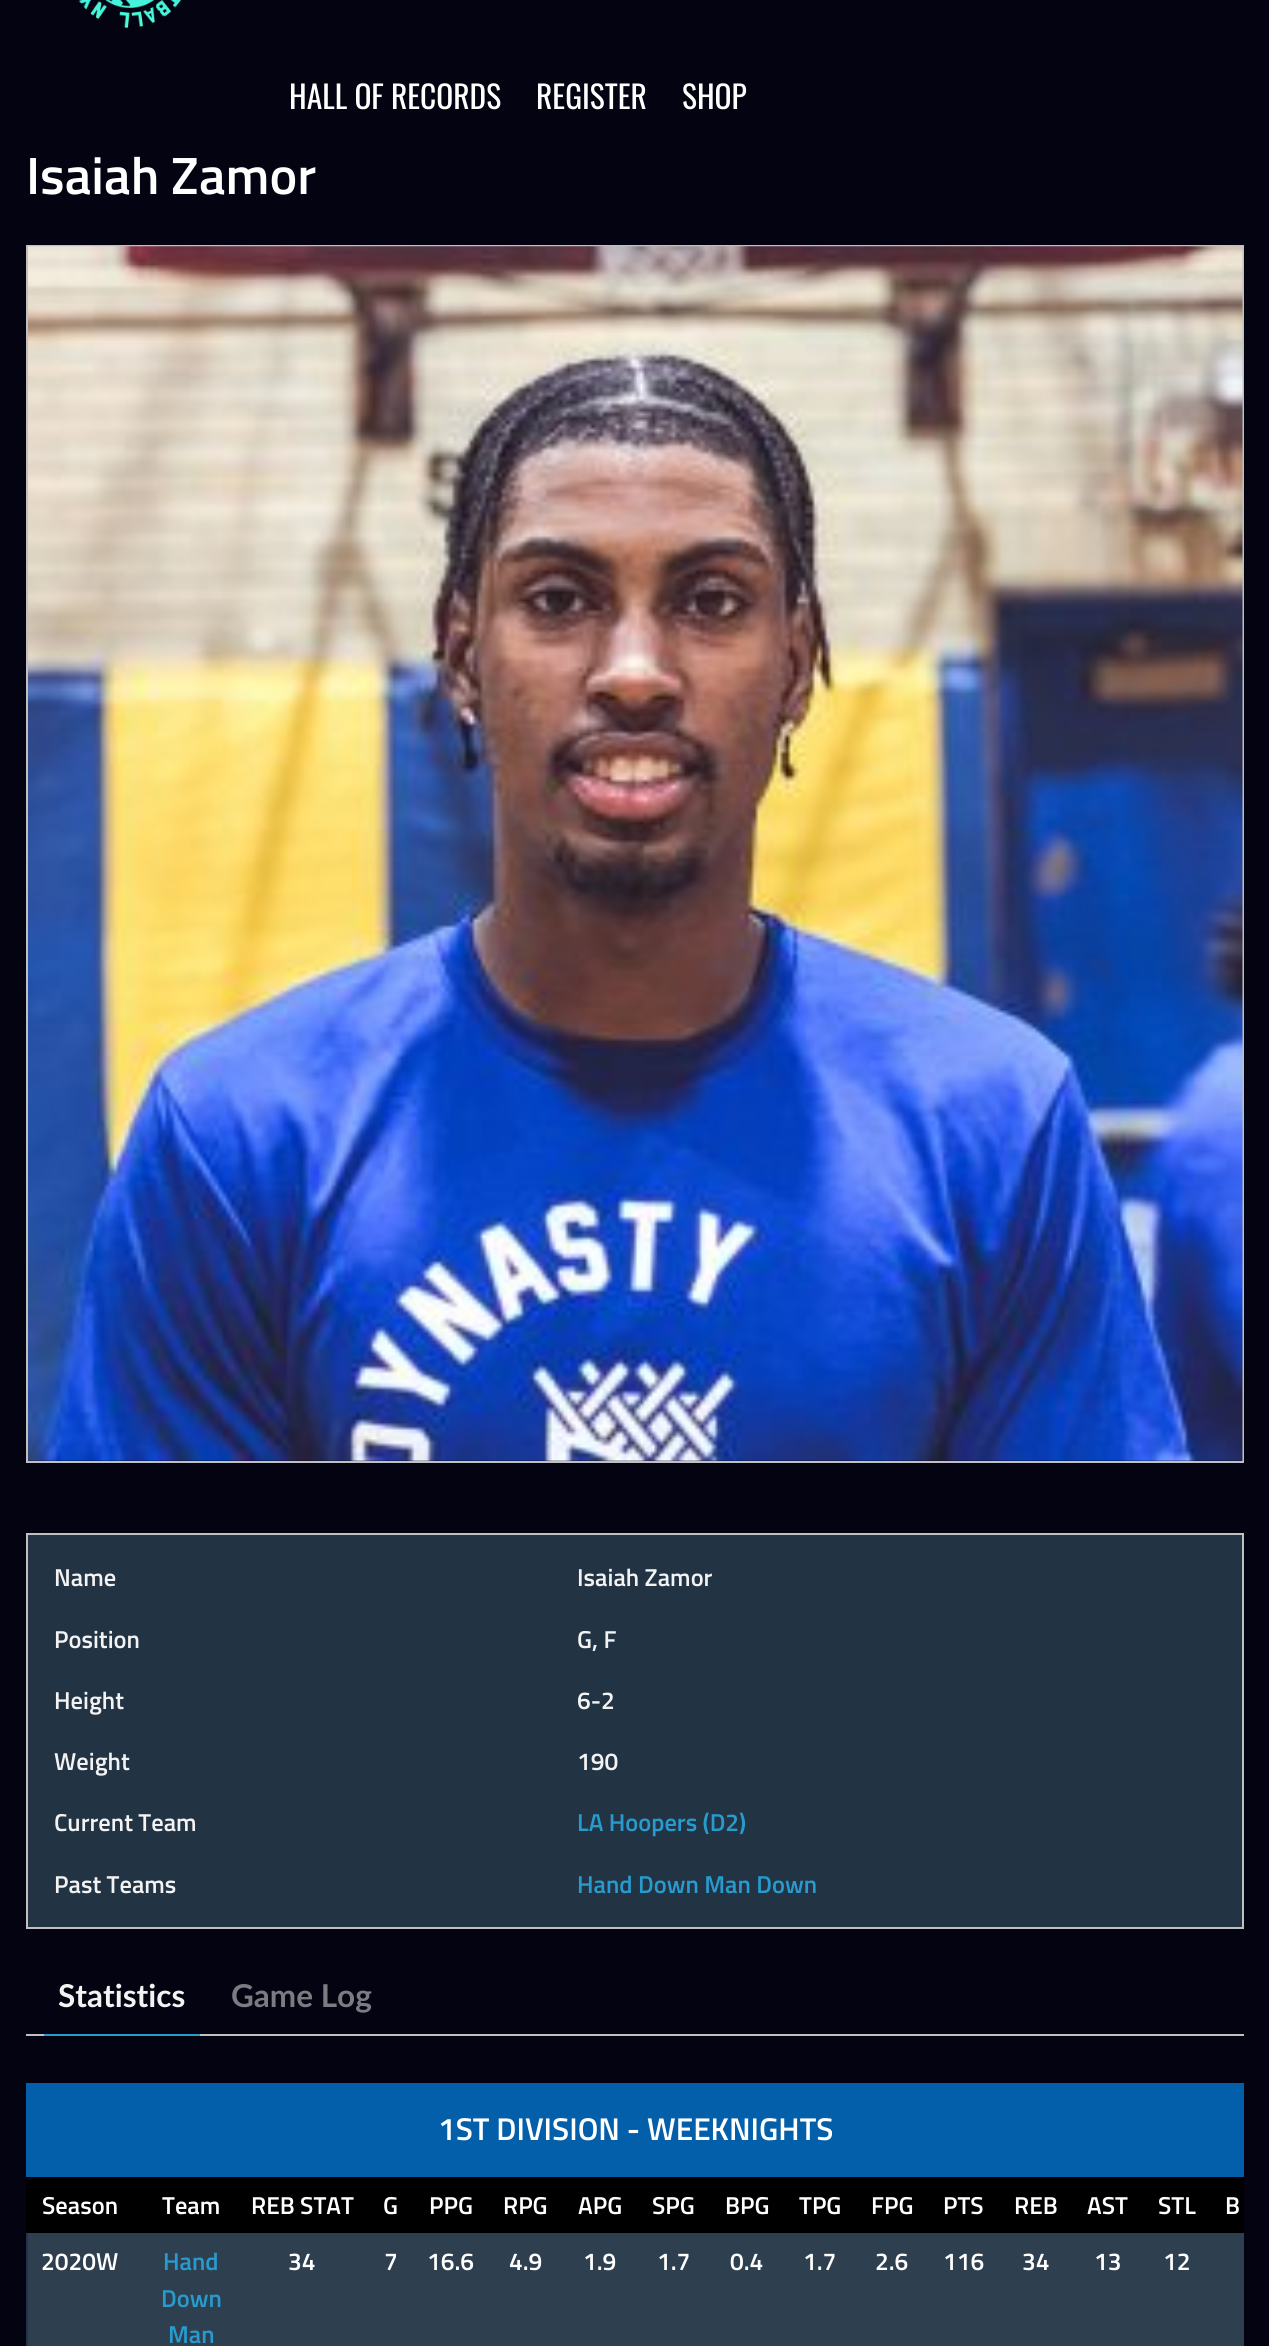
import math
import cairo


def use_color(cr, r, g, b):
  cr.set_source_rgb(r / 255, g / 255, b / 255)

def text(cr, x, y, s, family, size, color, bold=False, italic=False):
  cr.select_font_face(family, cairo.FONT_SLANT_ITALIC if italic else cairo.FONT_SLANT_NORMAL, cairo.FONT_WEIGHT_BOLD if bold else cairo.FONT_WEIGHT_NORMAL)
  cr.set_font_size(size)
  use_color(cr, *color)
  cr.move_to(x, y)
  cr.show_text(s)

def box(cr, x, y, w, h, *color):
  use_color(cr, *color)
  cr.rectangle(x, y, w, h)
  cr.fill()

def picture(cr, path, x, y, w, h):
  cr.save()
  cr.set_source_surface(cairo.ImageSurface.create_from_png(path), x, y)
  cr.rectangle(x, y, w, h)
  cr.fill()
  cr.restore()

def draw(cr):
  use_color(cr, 3, 3, 17)
  cr.paint()
  picture(cr, "img_01.png", 78, 0, 104, 28)
  cr.rectangle(27, 246, 1216, 1216)
  use_color(cr, 192, 192, 192)
  cr.stroke()
  picture(cr, "img_02.png", 28, 246, 1215, 1215)
  use_color(cr, 34, 51, 68)
  cr.rectangle(27, 1534, 1216, 394)
  cr.fill_preserve()
  use_color(cr, 192, 192, 192)
  cr.stroke()
  box(cr, 26, 2034, 1218, 2, 192, 192, 192)
  box(cr, 44, 2034, 156, 2, 39, 155, 205)
  box(cr, 26, 2231, 1218, 2, 0, 0, 0)
  box(cr, 26, 2175, 2, 58, 0, 0, 0)
  box(cr, 26, 2083, 1218, 94, 3, 95, 170)
  box(cr, 26, 2233, 2, 113, 34, 51, 68)
  box(cr, 28, 2177, 1216, 54, 0, 0, 0)
  box(cr, 28, 2233, 1216, 113, 46, 63, 80)
  text(cr, 289, 109, "HALL OF RECORDS", "Oswald", 31.5, (255, 255, 255))
  text(cr, 536, 109, "REGISTER", "Oswald", 31.5, (255, 255, 255))
  text(cr, 682, 109, "SHOP", "Oswald", 31.5, (255, 255, 255))
  text(cr, 26, 194, "Isaiah Zamor", "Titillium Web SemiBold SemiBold", 52.5, (255, 255, 255))
  text(cr, 54, 1586, "Name", "Titillium Web SemiBold SemiBold", 24.5, (243, 243, 243))
  text(cr, 577, 1586, "Isaiah Zamor", "Titillium Web SemiBold SemiBold", 24.5, (243, 243, 243))
  text(cr, 54, 1648, "Position", "Titillium Web SemiBold SemiBold", 24.5, (243, 243, 243))
  text(cr, 577, 1648, "G, F", "Titillium Web SemiBold SemiBold", 24.5, (243, 243, 243))
  text(cr, 54, 1709, "Height", "Titillium Web SemiBold SemiBold", 24.5, (243, 243, 243))
  text(cr, 577, 1709, "6-2", "Titillium Web SemiBold SemiBold", 24.5, (243, 243, 243))
  text(cr, 54, 1770, "Weight", "Titillium Web SemiBold SemiBold", 24.5, (243, 243, 243))
  text(cr, 577, 1770, "190", "Titillium Web SemiBold SemiBold", 24.5, (243, 243, 243))
  text(cr, 54, 1831, "Current Team", "Titillium Web SemiBold SemiBold", 24.5, (243, 243, 243))
  text(cr, 577, 1831, "LA Hoopers (D2)", "Titillium Web SemiBold SemiBold", 24.5, (39, 155, 205))
  text(cr, 54, 1893, "Past Teams", "Titillium Web SemiBold SemiBold", 24.5, (243, 243, 243))
  text(cr, 577, 1893, "Hand Down Man Down", "Titillium Web SemiBold SemiBold", 24.5, (39, 155, 205))
  text(cr, 58, 2007, "Statistics", "Lato", 31.5, (243, 243, 243), bold=True)
  text(cr, 231, 2007, "Game Log", "Lato", 31.5, (123, 123, 130), bold=True)
  text(cr, 438, 2140, "1ST DIVISION - WEEKNIGHTS", "Titillium Web SemiBold SemiBold", 31.5, (255, 255, 255))
  text(cr, 42, 2214, "Season", "Titillium Web SemiBold SemiBold", 24.5, (255, 255, 255))
  text(cr, 162, 2214, "Team", "Titillium Web SemiBold SemiBold", 24.5, (255, 255, 255))
  text(cr, 251, 2214, "REB STAT", "Titillium Web SemiBold SemiBold", 24.5, (255, 255, 255))
  text(cr, 383, 2214, "G", "Titillium Web SemiBold SemiBold", 24.5, (255, 255, 255))
  text(cr, 429, 2214, "PPG", "Titillium Web SemiBold SemiBold", 24.5, (255, 255, 255))
  text(cr, 503, 2214, "RPG", "Titillium Web SemiBold SemiBold", 24.5, (255, 255, 255))
  text(cr, 578, 2214, "APG", "Titillium Web SemiBold SemiBold", 24.5, (255, 255, 255))
  text(cr, 652, 2214, "SPG", "Titillium Web SemiBold SemiBold", 24.5, (255, 255, 255))
  text(cr, 725, 2214, "BPG", "Titillium Web SemiBold SemiBold", 24.5, (255, 255, 255))
  text(cr, 799, 2214, "TPG", "Titillium Web SemiBold SemiBold", 24.5, (255, 255, 255))
  text(cr, 871, 2214, "FPG", "Titillium Web SemiBold SemiBold", 24.5, (255, 255, 255))
  text(cr, 943, 2214, "PTS", "Titillium Web SemiBold SemiBold", 24.5, (255, 255, 255))
  text(cr, 1014, 2214, "REB", "Titillium Web SemiBold SemiBold", 24.5, (255, 255, 255))
  text(cr, 1087, 2214, "AST", "Titillium Web SemiBold SemiBold", 24.5, (255, 255, 255))
  text(cr, 1158, 2214, "STL", "Titillium Web SemiBold SemiBold", 24.5, (255, 255, 255))
  text(cr, 1225, 2214, "B", "Titillium Web SemiBold SemiBold", 24.5, (255, 255, 255))
  text(cr, 41, 2270, "2020W", "Titillium Web SemiBold SemiBold", 24.5, (255, 255, 255))
  text(cr, 163, 2270, "Hand", "Titillium Web SemiBold SemiBold", 24.5, (39, 155, 205))
  text(cr, 161, 2307, "Down", "Titillium Web SemiBold SemiBold", 24.5, (39, 155, 205))
  text(cr, 168, 2343, "Man", "Titillium Web SemiBold SemiBold", 24.5, (39, 155, 205))
  text(cr, 288, 2270, "34", "Titillium Web SemiBold SemiBold", 24.5, (255, 255, 255))
  text(cr, 384, 2270, "7", "Titillium Web SemiBold SemiBold", 24.5, (255, 255, 255))
  text(cr, 427, 2270, "16.6", "Titillium Web SemiBold SemiBold", 24.5, (255, 255, 255))
  text(cr, 509, 2270, "4.9", "Titillium Web SemiBold SemiBold", 24.5, (255, 255, 255))
  text(cr, 583, 2270, "1.9", "Titillium Web SemiBold SemiBold", 24.5, (255, 255, 255))
  text(cr, 657, 2270, "1.7", "Titillium Web SemiBold SemiBold", 24.5, (255, 255, 255))
  text(cr, 730, 2270, "0.4", "Titillium Web SemiBold SemiBold", 24.5, (255, 255, 255))
  text(cr, 803, 2270, "1.7", "Titillium Web SemiBold SemiBold", 24.5, (255, 255, 255))
  text(cr, 875, 2270, "2.6", "Titillium Web SemiBold SemiBold", 24.5, (255, 255, 255))
  text(cr, 943, 2270, "116", "Titillium Web SemiBold SemiBold", 24.5, (255, 255, 255))
  text(cr, 1022, 2270, "34", "Titillium Web SemiBold SemiBold", 24.5, (255, 255, 255))
  text(cr, 1094, 2270, "13", "Titillium Web SemiBold SemiBold", 24.5, (255, 255, 255))
  text(cr, 1163, 2270, "12", "Titillium Web SemiBold SemiBold", 24.5, (255, 255, 255))


surface = cairo.ImageSurface(cairo.FORMAT_RGB24, 1269, 2346)
cr = cairo.Context(surface)
options = cairo.FontOptions()
options.set_hint_metrics(cairo.HINT_METRICS_OFF)
options.set_hint_style(cairo.HINT_STYLE_NONE)
cr.set_font_options(options)
cr.set_miter_limit(4)
draw(cr)
surface.write_to_png("out.png")
